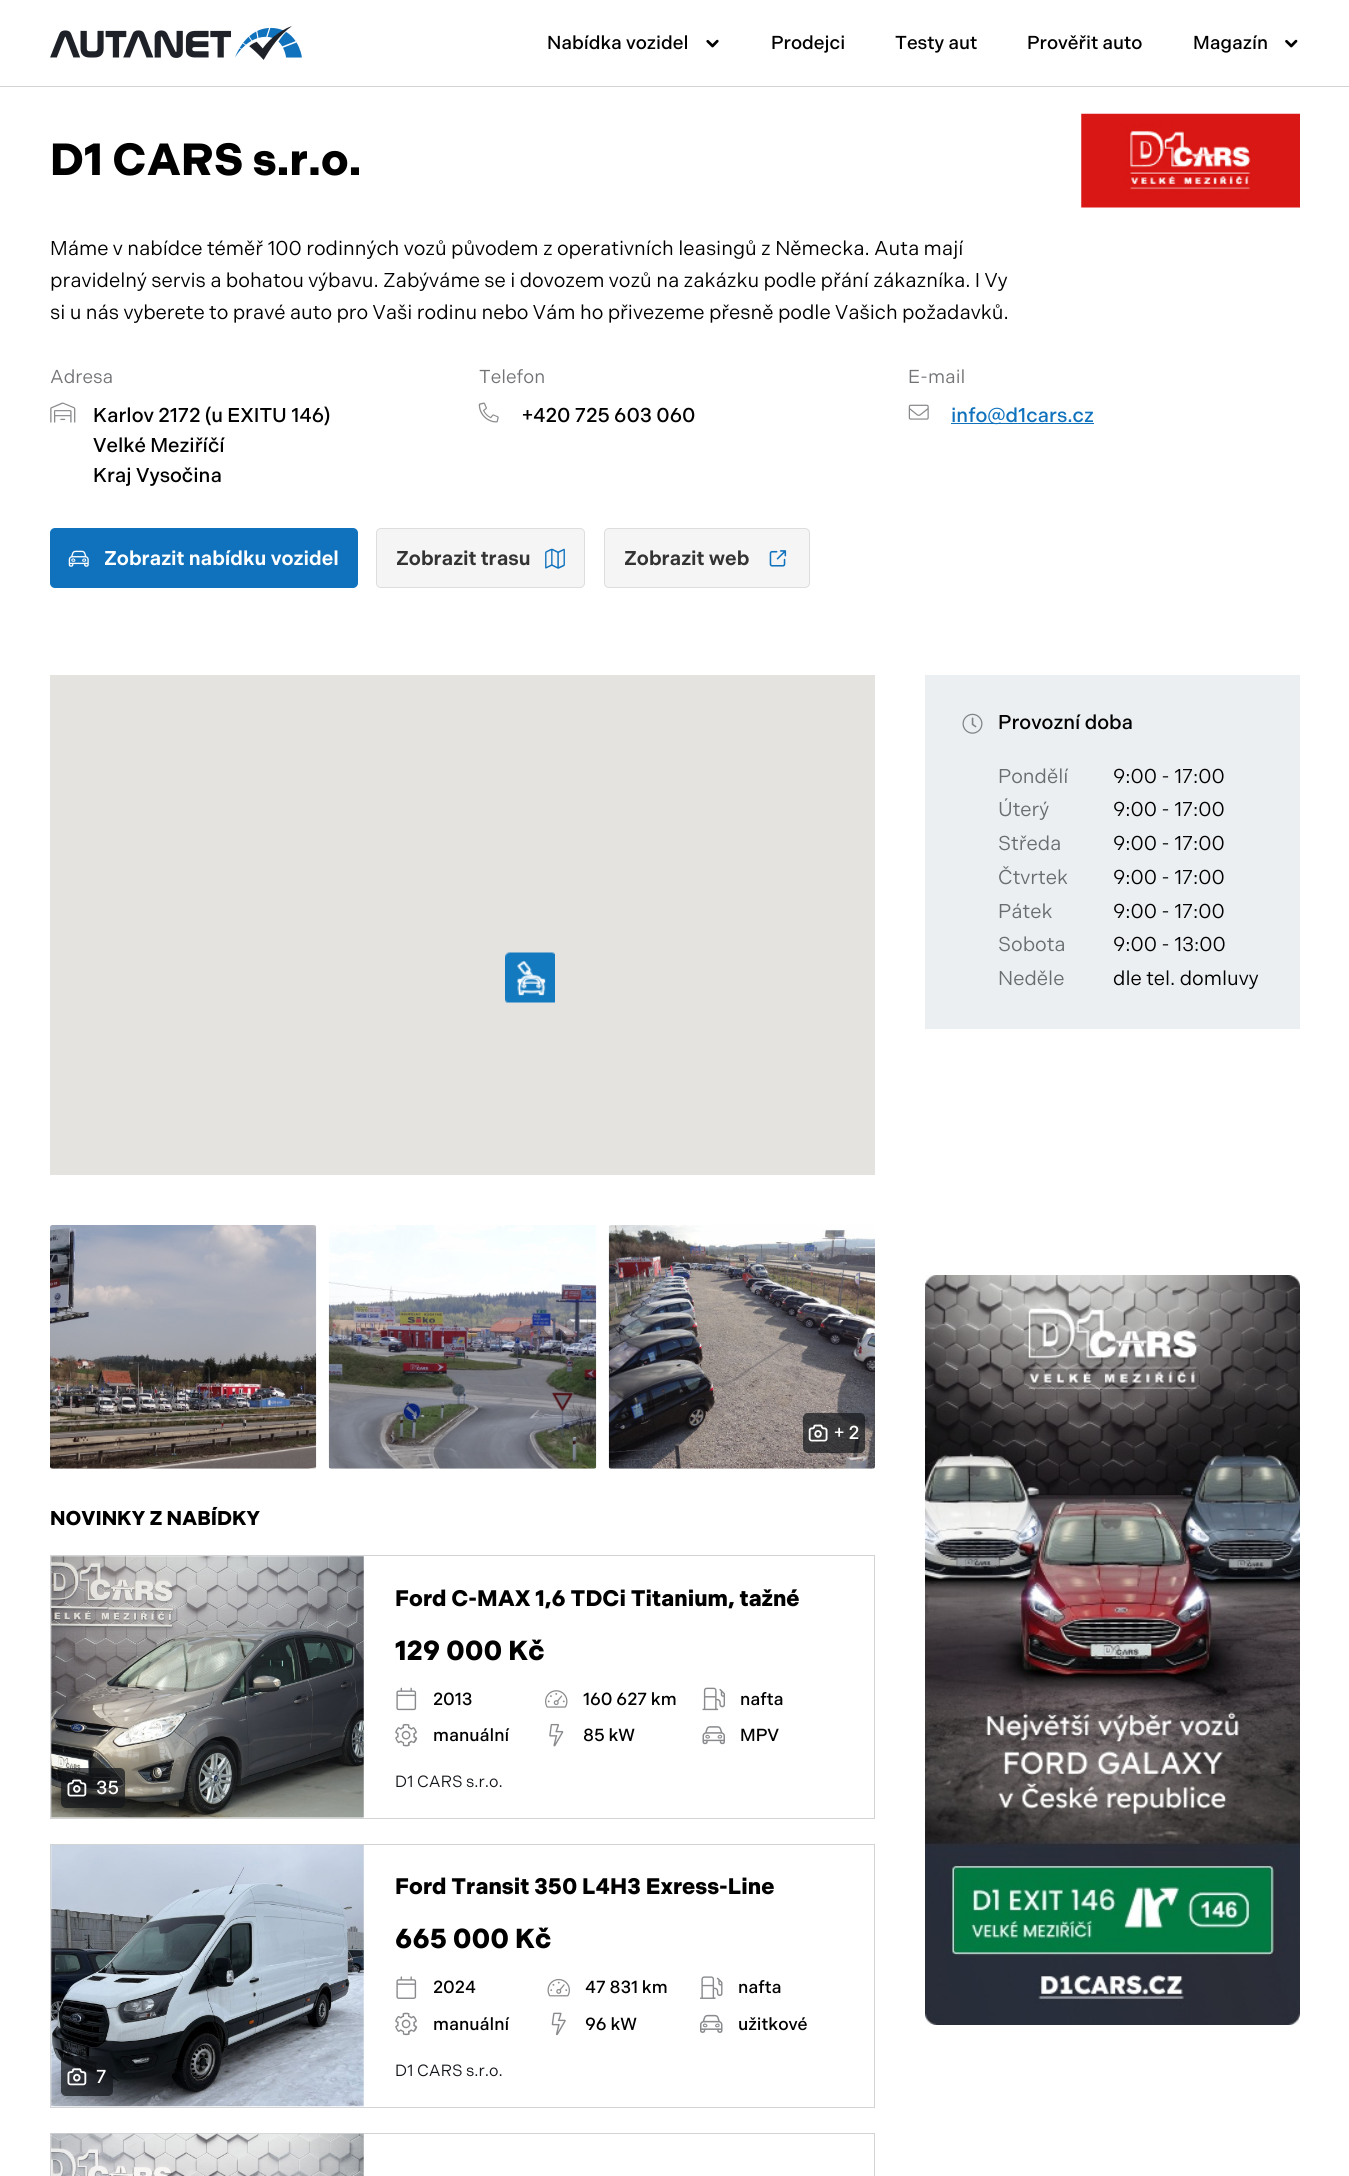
import math
import cairo


def use_color(cr, r, g, b):
  cr.set_source_rgb(r / 255, g / 255, b / 255)

def text(cr, x, y, s, family, size, color, bold=False, italic=False):
  cr.select_font_face(family, cairo.FONT_SLANT_ITALIC if italic else cairo.FONT_SLANT_NORMAL, cairo.FONT_WEIGHT_BOLD if bold else cairo.FONT_WEIGHT_NORMAL)
  cr.set_font_size(size)
  use_color(cr, *color)
  cr.move_to(x, y)
  cr.show_text(s)

def box(cr, x, y, w, h, *color):
  use_color(cr, *color)
  cr.rectangle(x, y, w, h)
  cr.fill()

def round_rect(cr, x, y, w, h, r):
  cr.new_sub_path()
  for i, (u, v) in enumerate([(x + w - r, y + h - r), (x + r, y + h - r), (x + r, y + r), (x + w - r, y + r)]):
    cr.arc(u, v, r, i * math.pi / 2, (i + 1) * math.pi / 2)
  cr.close_path()

def picture(cr, path, x, y, w, h):
  cr.save()
  cr.set_source_surface(cairo.ImageSurface.create_from_png(path), x, y)
  cr.rectangle(x, y, w, h)
  cr.fill()
  cr.restore()

def draw(cr):
  use_color(cr, 255, 255, 255)
  cr.paint()
  box(cr, 0, 86, 1349, 1, 210, 211, 212)
  picture(cr, "img_01.png", 50, 26, 252, 34)
  picture(cr, "img_02.png", 706, 39, 13, 9)
  picture(cr, "img_03.png", 1285, 39, 13, 9)
  picture(cr, "img_04.png", 1081, 113, 219, 95)
  picture(cr, "img_05.png", 50, 402, 26, 21)
  picture(cr, "img_06.png", 478, 402, 21, 21)
  picture(cr, "img_07.png", 908, 404, 21, 16)
  box(cr, 951, 423, 143, 1, 16, 114, 189)
  round_rect(cr, 50, 528, 308, 60, 5)
  cr.fill()
  picture(cr, "img_08.png", 68, 550, 21, 17)
  use_color(cr, 245, 245, 245)
  round_rect(cr, 376.5, 528.5, 208, 59, 4.5)
  cr.fill_preserve()
  use_color(cr, 221, 221, 221)
  cr.set_line_width(1)
  cr.stroke()
  picture(cr, "img_09.png", 545, 548, 20, 21)
  use_color(cr, 245, 245, 245)
  round_rect(cr, 604.5, 528.5, 205, 59, 4.5)
  cr.fill_preserve()
  use_color(cr, 221, 221, 221)
  cr.stroke()
  picture(cr, "img_10.png", 769, 550, 18, 17)
  box(cr, 50, 675, 825, 500, 229, 227, 223)
  picture(cr, "img_11.png", 505, 952, 50, 51)
  box(cr, 925, 675, 375, 354, 235, 239, 241)
  picture(cr, "img_12.png", 962, 713, 21, 21)
  picture(cr, "img_13.png", 50, 1225, 267, 244)
  picture(cr, "img_14.png", 328, 1225, 269, 244)
  picture(cr, "img_15.png", 608, 1225, 267, 244)
  cr.set_source_rgba(0.075, 0.086, 0.106, 0.7)
  round_rect(cr, 803, 1413, 62, 40, 5)
  cr.fill()
  picture(cr, "img_16.png", 808, 1424, 20, 18)
  cr.rectangle(50.5, 1555.5, 824, 263)
  use_color(cr, 210, 211, 212)
  cr.stroke()
  picture(cr, "img_17.png", 51, 1556, 313, 262)
  cr.set_source_rgba(0.075, 0.086, 0.106, 0.7)
  round_rect(cr, 61, 1768, 64, 40, 5)
  cr.fill()
  picture(cr, "img_18.png", 67, 1779, 20, 18)
  picture(cr, "img_19.png", 396, 1687, 21, 24)
  picture(cr, "img_20.png", 545, 1690, 23, 18)
  picture(cr, "img_21.png", 702, 1687, 23, 24)
  picture(cr, "img_22.png", 395, 1723, 23, 24)
  picture(cr, "img_23.png", 549, 1723, 15, 24)
  picture(cr, "img_24.png", 702, 1726, 23, 19)
  cr.rectangle(50.5, 1844.5, 824, 263)
  use_color(cr, 210, 211, 212)
  cr.stroke()
  picture(cr, "img_25.png", 51, 1845, 313, 262)
  cr.set_source_rgba(0.075, 0.086, 0.106, 0.7)
  round_rect(cr, 61, 2056, 52, 40, 5)
  cr.fill()
  picture(cr, "img_26.png", 67, 2068, 20, 18)
  picture(cr, "img_27.png", 396, 1976, 21, 23)
  picture(cr, "img_28.png", 547, 1978, 23, 19)
  picture(cr, "img_29.png", 700, 1976, 23, 23)
  picture(cr, "img_30.png", 395, 2012, 23, 24)
  picture(cr, "img_31.png", 551, 2012, 15, 24)
  picture(cr, "img_32.png", 700, 2014, 23, 19)
  cr.rectangle(50.5, 2133.5, 824, 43)
  use_color(cr, 210, 211, 212)
  cr.stroke()
  picture(cr, "img_33.png", 51, 2133, 313, 43)
  picture(cr, "img_34.png", 925, 1275, 375, 750)
  text(cr, 547, 49, "Nabídka vozidel", "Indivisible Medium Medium", 18.75, (0, 0, 0))
  text(cr, 771, 49, "Prodejci", "Indivisible Medium Medium", 18.75, (0, 0, 0))
  text(cr, 895, 49, "Testy aut", "Indivisible Medium Medium", 18.75, (0, 0, 0))
  text(cr, 1027, 49, "Prověřit auto", "Indivisible Medium Medium", 18.75, (0, 0, 0))
  text(cr, 1193, 49, "Magazín", "Indivisible Medium Medium", 18.75, (0, 0, 0))
  text(cr, 50, 175, "D1 CARS s.r.o.", "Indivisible", 45, (0, 0, 0), bold=True)
  text(cr, 50, 255, "Máme v nabídce téměř 100 rodinných vozů původem z operativních leasingů z Německa. Auta mají", "Indivisible", 20, (0, 0, 0))
  text(cr, 50, 287, "pravidelný servis a bohatou výbavu. Zabýváme se i dovozem vozů na zakázku podle přání zákazníka. I Vy", "Indivisible", 20, (0, 0, 0))
  text(cr, 50, 319, "si u nás vyberete to pravé auto pro Vaši rodinu nebo Vám ho přivezeme přesně podle Vašich požadavků.", "Indivisible", 20, (0, 0, 0))
  text(cr, 50, 383, "Adresa", "Indivisible", 18.75, (113, 115, 118))
  text(cr, 93, 422, "Karlov 2172 (u EXITU 146)", "Indivisible Medium Medium", 20, (0, 0, 0))
  text(cr, 93, 452, "Velké Meziříčí", "Indivisible Medium Medium", 20, (0, 0, 0))
  text(cr, 93, 482, "Kraj Vysočina", "Indivisible Medium Medium", 20, (0, 0, 0))
  text(cr, 479, 383, "Telefon", "Indivisible", 18.75, (113, 115, 118))
  text(cr, 522, 422, "+420 725 603 060", "Indivisible Medium Medium", 20, (0, 0, 0))
  text(cr, 908, 383, "E-mail", "Indivisible", 18.75, (113, 115, 118))
  text(cr, 951, 422, "info@d1cars.cz", "Indivisible Medium Medium", 20, (16, 114, 189))
  text(cr, 104, 565, "Zobrazit nabídku vozidel", "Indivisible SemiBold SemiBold", 20, (255, 255, 255))
  text(cr, 396, 565, "Zobrazit trasu", "Indivisible SemiBold SemiBold", 20, (51, 51, 51))
  text(cr, 624, 565, "Zobrazit web", "Indivisible SemiBold SemiBold", 20, (51, 51, 51))
  text(cr, 998, 729, "Provozní doba", "Indivisible Medium Medium", 20, (0, 0, 0))
  text(cr, 998, 783, "Pondělí", "Indivisible", 20, (105, 109, 113))
  text(cr, 1113, 783, "9:00 - 17:00", "Indivisible", 20, (0, 0, 0))
  text(cr, 998, 816, "Úterý", "Indivisible", 20, (105, 109, 113))
  text(cr, 1113, 816, "9:00 - 17:00", "Indivisible", 20, (0, 0, 0))
  text(cr, 998, 850, "Středa", "Indivisible", 20, (105, 109, 113))
  text(cr, 1113, 850, "9:00 - 17:00", "Indivisible", 20, (0, 0, 0))
  text(cr, 998, 884, "Čtvrtek", "Indivisible", 20, (105, 109, 113))
  text(cr, 1113, 884, "9:00 - 17:00", "Indivisible", 20, (0, 0, 0))
  text(cr, 998, 918, "Pátek", "Indivisible", 20, (105, 109, 113))
  text(cr, 1113, 918, "9:00 - 17:00", "Indivisible", 20, (0, 0, 0))
  text(cr, 998, 951, "Sobota", "Indivisible", 20, (105, 109, 113))
  text(cr, 1113, 951, "9:00 - 13:00", "Indivisible", 20, (0, 0, 0))
  text(cr, 998, 985, "Neděle", "Indivisible", 20, (105, 109, 113))
  text(cr, 1113, 985, "dle tel. domluvy", "Indivisible", 20, (0, 0, 0))
  text(cr, 834, 1439, "+ 2", "Indivisible Medium Medium", 18.75, (255, 255, 255))
  text(cr, 50, 1525, "NOVINKY Z NABÍDKY", "Indivisible", 20, (0, 0, 0), bold=True)
  text(cr, 96, 1794, "35", "Indivisible Medium Medium", 18.75, (255, 255, 255))
  text(cr, 395, 1606, "Ford C-MAX 1,6 TDCi Titanium, tažné", "Indivisible", 22.5, (0, 0, 0), bold=True)
  text(cr, 395, 1660, "129 000 Kč", "Indivisible", 27.5, (0, 0, 0), bold=True)
  text(cr, 433, 1705, "2013", "Indivisible Medium Medium", 17.5, (0, 0, 0))
  text(cr, 583, 1705, "160 627 km", "Indivisible Medium Medium", 17.5, (0, 0, 0))
  text(cr, 740, 1705, "nafta", "Indivisible Medium Medium", 17.5, (0, 0, 0))
  text(cr, 433, 1741, "manuální", "Indivisible Medium Medium", 17.5, (0, 0, 0))
  text(cr, 583, 1741, "85 kW", "Indivisible Medium Medium", 17.5, (0, 0, 0))
  text(cr, 740, 1741, "MPV", "Indivisible Medium Medium", 17.5, (0, 0, 0))
  text(cr, 395, 1787, "D1 CARS s.r.o.", "Indivisible", 16.25, (19, 22, 27))
  text(cr, 96, 2083, "7", "Indivisible Medium Medium", 18.75, (255, 255, 255))
  text(cr, 395, 1894, "Ford Transit 350 L4H3 Exress-Line", "Indivisible", 22.5, (0, 0, 0), bold=True)
  text(cr, 395, 1948, "665 000 Kč", "Indivisible", 27.5, (0, 0, 0), bold=True)
  text(cr, 433, 1993, "2024", "Indivisible Medium Medium", 17.5, (0, 0, 0))
  text(cr, 585, 1993, "47 831 km", "Indivisible Medium Medium", 17.5, (0, 0, 0))
  text(cr, 738, 1993, "nafta", "Indivisible Medium Medium", 17.5, (0, 0, 0))
  text(cr, 433, 2030, "manuální", "Indivisible Medium Medium", 17.5, (0, 0, 0))
  text(cr, 585, 2030, "96 kW", "Indivisible Medium Medium", 17.5, (0, 0, 0))
  text(cr, 738, 2030, "užitkové", "Indivisible Medium Medium", 17.5, (0, 0, 0))
  text(cr, 395, 2076, "D1 CARS s.r.o.", "Indivisible", 16.25, (19, 22, 27))


surface = cairo.ImageSurface(cairo.FORMAT_RGB24, 1349, 2176)
cr = cairo.Context(surface)
options = cairo.FontOptions()
options.set_hint_metrics(cairo.HINT_METRICS_OFF)
options.set_hint_style(cairo.HINT_STYLE_NONE)
cr.set_font_options(options)
cr.set_miter_limit(4)
draw(cr)
surface.write_to_png("out.png")
